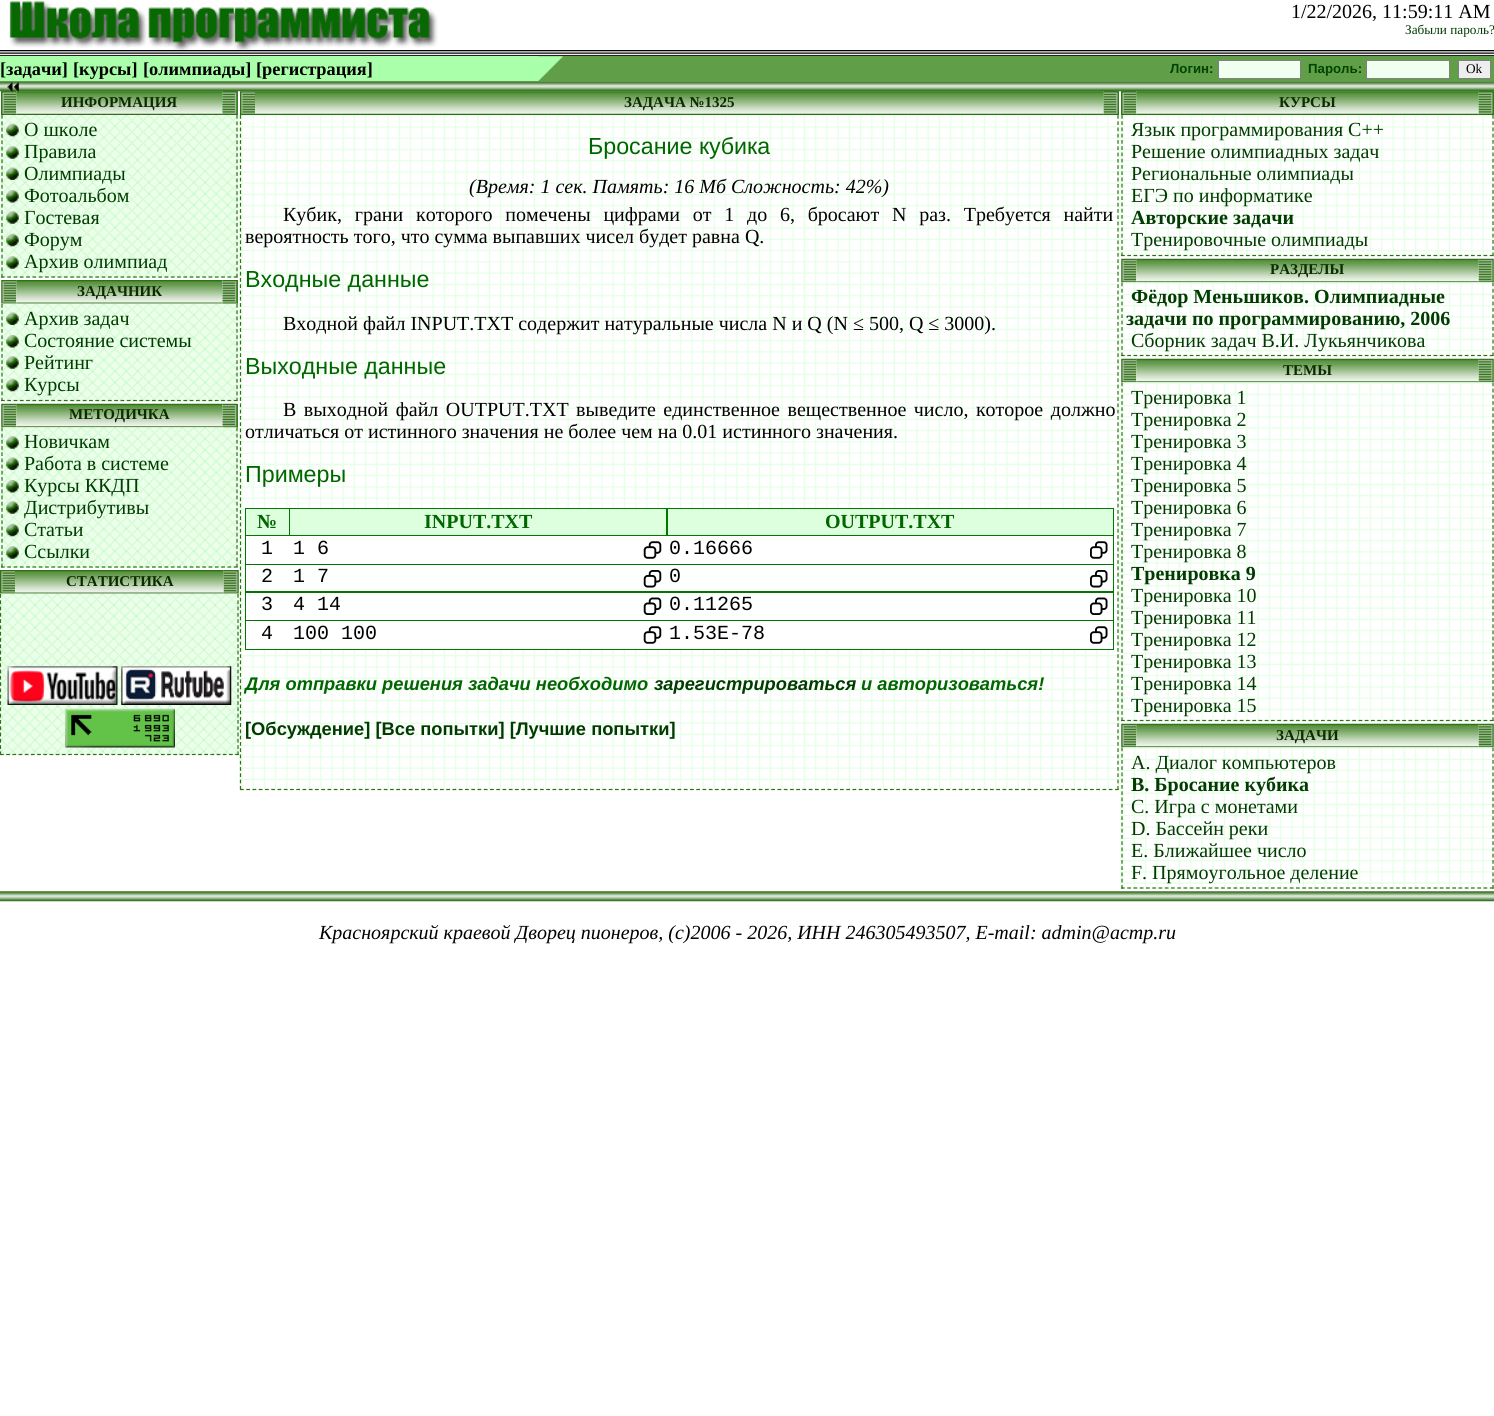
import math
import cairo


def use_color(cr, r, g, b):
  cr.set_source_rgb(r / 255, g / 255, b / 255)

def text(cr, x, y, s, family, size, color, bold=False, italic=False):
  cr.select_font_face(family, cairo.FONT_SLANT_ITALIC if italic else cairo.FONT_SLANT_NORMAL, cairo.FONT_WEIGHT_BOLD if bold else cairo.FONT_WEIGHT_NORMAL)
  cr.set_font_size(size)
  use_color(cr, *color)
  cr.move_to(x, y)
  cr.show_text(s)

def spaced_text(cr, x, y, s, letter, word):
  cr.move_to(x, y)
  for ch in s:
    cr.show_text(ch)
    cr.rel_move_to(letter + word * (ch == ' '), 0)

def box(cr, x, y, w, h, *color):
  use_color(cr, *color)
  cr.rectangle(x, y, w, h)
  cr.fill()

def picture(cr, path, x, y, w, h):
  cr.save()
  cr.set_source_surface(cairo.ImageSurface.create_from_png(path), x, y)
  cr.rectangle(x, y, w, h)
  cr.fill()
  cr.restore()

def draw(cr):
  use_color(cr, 255, 255, 255)
  cr.paint()
  picture(cr, "img_01.png", 9, 1, 429, 49)
  picture(cr, "img_02.png", 0, 50, 1494, 6)
  box(cr, 0, 56, 538, 25, 170, 255, 170)
  box(cr, 538, 56, 956, 25, 96, 158, 72)
  picture(cr, "img_03.png", 537, 56, 26, 26)
  use_color(cr, 240, 255, 240)
  cr.rectangle(1218.5, 60.5, 82, 18)
  cr.fill_preserve()
  use_color(cr, 128, 128, 128)
  cr.set_line_width(1)
  cr.stroke()
  use_color(cr, 240, 255, 240)
  cr.rectangle(1366.5, 60.5, 83, 18)
  cr.fill_preserve()
  use_color(cr, 128, 128, 128)
  cr.stroke()
  use_color(cr, 238, 238, 238)
  cr.rectangle(1458.5, 60.5, 32, 18)
  cr.fill_preserve()
  use_color(cr, 128, 128, 128)
  cr.stroke()
  picture(cr, "img_04.png", 0, 81, 1494, 11)
  box(cr, 1, 91, 15, 24, 51, 153, 51)
  picture(cr, "img_06.png", 1, 91, 15, 24)
  box(cr, 16, 91, 207, 24, 136, 255, 136)
  picture(cr, "img_07.png", 16, 91, 207, 24)
  picture(cr, "img_05.png", 7, 82, 12, 10)
  box(cr, 223, 91, 15, 24, 51, 153, 51)
  picture(cr, "img_08.png", 222, 91, 16, 24)
  box(cr, 0, 115, 239, 163, 240, 255, 240)
  picture(cr, "img_09.png", 1, 115, 237, 163)
  cr.new_path()
  cr.move_to(237, 115)
  cr.line_to(237, 277.5)
  use_color(cr, 48, 110, 24)
  cr.set_line_width(1.2)
  cr.set_dash([3.75, 2.6])
  cr.stroke()
  cr.new_path()
  cr.move_to(1, 277)
  cr.line_to(237.5, 277)
  cr.set_dash([3.75, 2.54])
  cr.stroke()
  cr.new_path()
  cr.move_to(2, 115)
  cr.line_to(2, 277.5)
  cr.set_dash([3.75, 2.6])
  cr.stroke()
  picture(cr, "img_10.png", 6, 123, 13, 14)
  picture(cr, "img_11.png", 6, 146, 13, 13)
  picture(cr, "img_12.png", 6, 167, 13, 13)
  picture(cr, "img_13.png", 6, 190, 13, 13)
  picture(cr, "img_14.png", 6, 211, 13, 13)
  picture(cr, "img_15.png", 6, 233, 13, 14)
  picture(cr, "img_16.png", 6, 256, 13, 13)
  picture(cr, "img_17.png", 1, 280, 16, 24)
  picture(cr, "img_18.png", 16, 280, 207, 24)
  box(cr, 223, 280, 15, 24, 51, 153, 51)
  picture(cr, "img_19.png", 222, 280, 16, 24)
  box(cr, 0, 304, 239, 97, 240, 255, 240)
  picture(cr, "img_20.png", 1, 303, 237, 99)
  cr.new_path()
  cr.move_to(237, 304)
  cr.line_to(237, 401)
  use_color(cr, 48, 110, 24)
  cr.set_dash([3.75, 2.5])
  cr.stroke()
  cr.new_path()
  cr.move_to(1, 400.5)
  cr.line_to(237.5, 400.5)
  cr.set_dash([3.75, 2.54])
  cr.stroke()
  cr.new_path()
  cr.move_to(2, 304)
  cr.line_to(2, 401)
  cr.set_dash([3.75, 2.5])
  cr.stroke()
  picture(cr, "img_21.png", 6, 312, 13, 13)
  picture(cr, "img_22.png", 6, 335, 13, 13)
  picture(cr, "img_23.png", 6, 356, 13, 13)
  picture(cr, "img_24.png", 6, 378, 13, 14)
  picture(cr, "img_25.png", 1, 403, 16, 25)
  picture(cr, "img_26.png", 16, 403, 207, 25)
  box(cr, 223, 404, 15, 24, 51, 153, 51)
  picture(cr, "img_27.png", 222, 403, 16, 25)
  box(cr, 0, 428, 239, 140, 240, 255, 240)
  picture(cr, "img_28.png", 1, 427, 237, 141)
  cr.new_path()
  cr.move_to(237, 427.5)
  cr.line_to(237, 567.5)
  use_color(cr, 48, 110, 24)
  cr.set_dash([3.75, 2.44])
  cr.stroke()
  cr.new_path()
  cr.move_to(1, 567)
  cr.line_to(237.5, 567)
  cr.set_dash([3.75, 2.54])
  cr.stroke()
  cr.new_path()
  cr.move_to(2, 427.5)
  cr.line_to(2, 567.5)
  cr.set_dash([3.75, 2.44])
  cr.stroke()
  picture(cr, "img_11.png", 6, 436, 13, 13)
  picture(cr, "img_12.png", 6, 457, 13, 13)
  picture(cr, "img_13.png", 6, 480, 13, 13)
  picture(cr, "img_14.png", 6, 501, 13, 13)
  picture(cr, "img_15.png", 6, 523, 13, 14)
  picture(cr, "img_14.png", 6, 546, 13, 13)
  picture(cr, "img_29.png", 0, 570, 15, 24)
  picture(cr, "img_30.png", 15, 570, 209, 24)
  picture(cr, "img_31.png", 223, 570, 16, 24)
  picture(cr, "img_32.png", 0, 593, 239, 162)
  cr.new_path()
  cr.move_to(238, 594)
  cr.line_to(238, 755)
  cr.set_dash([3.75, 2.55])
  cr.stroke()
  cr.new_path()
  cr.move_to(0, 754.5)
  cr.line_to(239, 754.5)
  cr.set_dash([3.75, 2.44])
  cr.stroke()
  cr.new_path()
  cr.move_to(0.5, 594)
  cr.line_to(0.5, 755)
  cr.set_dash([3.75, 2.55])
  cr.stroke()
  picture(cr, "img_33.png", 7, 666, 111, 39)
  picture(cr, "img_34.png", 121, 666, 111, 39)
  picture(cr, "img_35.png", 65, 708, 110, 40)
  picture(cr, "img_36.png", 240, 91, 15, 24)
  box(cr, 255, 91, 849, 24, 136, 255, 136)
  picture(cr, "img_37.png", 255, 91, 849, 24)
  box(cr, 1104, 91, 15, 24, 51, 153, 51)
  picture(cr, "img_38.png", 1103, 91, 16, 24)
  box(cr, 239, 115, 881, 675, 240, 255, 240)
  picture(cr, "img_39.png", 240, 115, 879, 675)
  cr.new_path()
  cr.move_to(1118, 115)
  cr.line_to(1118, 790)
  use_color(cr, 48, 110, 24)
  cr.set_dash([3.75, 2.52])
  cr.stroke()
  cr.new_path()
  cr.move_to(240, 789.5)
  cr.line_to(1119, 789.5)
  cr.set_dash([3.75, 2.5])
  cr.stroke()
  cr.new_path()
  cr.move_to(240.5, 115)
  cr.line_to(240.5, 790)
  cr.set_dash([3.75, 2.52])
  cr.stroke()
  box(cr, 245, 508, 869, 142, 0, 119, 0)
  box(cr, 246, 509, 43, 26, 221, 255, 221)
  box(cr, 290, 509, 376, 26, 221, 255, 221)
  box(cr, 668, 509, 445, 26, 221, 255, 221)
  box(cr, 246, 536, 867, 28, 255, 255, 255)
  picture(cr, "img_40.png", 643, 541, 19, 18)
  picture(cr, "img_41.png", 1090, 541, 18, 18)
  box(cr, 246, 565, 867, 26, 255, 255, 255)
  picture(cr, "img_42.png", 643, 570, 19, 18)
  picture(cr, "img_43.png", 1090, 570, 18, 18)
  box(cr, 246, 593, 867, 27, 255, 255, 255)
  picture(cr, "img_44.png", 643, 597, 19, 18)
  picture(cr, "img_45.png", 1090, 597, 18, 18)
  box(cr, 246, 621, 867, 28, 255, 255, 255)
  picture(cr, "img_40.png", 643, 626, 19, 18)
  picture(cr, "img_41.png", 1090, 626, 18, 18)
  box(cr, 1121, 91, 15, 24, 51, 153, 51)
  picture(cr, "img_06.png", 1121, 91, 15, 24)
  box(cr, 1136, 91, 343, 24, 136, 255, 136)
  picture(cr, "img_46.png", 1136, 91, 343, 24)
  box(cr, 1479, 91, 15, 24, 51, 153, 51)
  picture(cr, "img_47.png", 1478, 91, 16, 24)
  box(cr, 1120, 115, 374, 141, 240, 255, 240)
  picture(cr, "img_48.png", 1121, 115, 373, 142)
  cr.new_path()
  cr.move_to(1493, 115)
  cr.line_to(1493, 256)
  use_color(cr, 48, 110, 24)
  cr.set_dash([3.75, 2.5])
  cr.stroke()
  cr.new_path()
  cr.move_to(1121, 255.5)
  cr.line_to(1494, 255.5)
  cr.stroke()
  cr.new_path()
  cr.move_to(1122, 115)
  cr.line_to(1122, 256)
  cr.stroke()
  picture(cr, "img_25.png", 1121, 258, 16, 25)
  picture(cr, "img_49.png", 1136, 258, 343, 25)
  picture(cr, "img_50.png", 1478, 258, 16, 25)
  box(cr, 1120, 283, 374, 73, 240, 255, 240)
  picture(cr, "img_51.png", 1121, 282, 373, 75)
  cr.new_path()
  cr.move_to(1493, 282.5)
  cr.line_to(1493, 356)
  use_color(cr, 48, 110, 24)
  cr.set_dash([3.75, 2.61])
  cr.stroke()
  cr.new_path()
  cr.move_to(1121, 355.5)
  cr.line_to(1494, 355.5)
  cr.set_dash([3.75, 2.5])
  cr.stroke()
  cr.new_path()
  cr.move_to(1122, 282.5)
  cr.line_to(1122, 356)
  cr.set_dash([3.75, 2.61])
  cr.stroke()
  picture(cr, "img_25.png", 1121, 358, 16, 25)
  picture(cr, "img_49.png", 1136, 358, 343, 25)
  picture(cr, "img_50.png", 1478, 358, 16, 25)
  box(cr, 1120, 383, 374, 338, 240, 255, 240)
  picture(cr, "img_52.png", 1121, 382, 373, 340)
  cr.new_path()
  cr.move_to(1493, 382.5)
  cr.line_to(1493, 721)
  use_color(cr, 48, 110, 24)
  cr.set_dash([3.75, 2.45])
  cr.stroke()
  cr.new_path()
  cr.move_to(1121, 720.5)
  cr.line_to(1494, 720.5)
  cr.set_dash([3.75, 2.5])
  cr.stroke()
  cr.new_path()
  cr.move_to(1122, 382.5)
  cr.line_to(1122, 721)
  cr.set_dash([3.75, 2.45])
  cr.stroke()
  picture(cr, "img_25.png", 1121, 723, 16, 25)
  picture(cr, "img_49.png", 1136, 723, 343, 25)
  picture(cr, "img_50.png", 1478, 723, 16, 25)
  box(cr, 1120, 748, 374, 141, 240, 255, 240)
  picture(cr, "img_53.png", 1121, 747, 373, 142)
  cr.new_path()
  cr.move_to(1493, 747.5)
  cr.line_to(1493, 889)
  use_color(cr, 48, 110, 24)
  cr.set_dash([3.75, 2.5])
  cr.stroke()
  cr.new_path()
  cr.move_to(1121, 888)
  cr.line_to(1494, 888)
  cr.stroke()
  cr.new_path()
  cr.move_to(1122, 747.5)
  cr.line_to(1122, 889)
  cr.stroke()
  picture(cr, "img_54.png", 0, 891, 1494, 11)
  text(cr, 1291, 18, "1/22/2026, 11:59:11 AM", "Liberation Serif", 20, (0, 0, 0))
  text(cr, 1405, 34, "Забыли пароль?", "Liberation Serif", 13.25, (0, 60, 0))
  text(cr, 0, 75, "[задачи]", "Liberation Serif", 18.3, (0, 0, 0), bold=True)
  text(cr, 73, 75, "[курсы]", "Liberation Serif", 18.3, (0, 0, 0), bold=True)
  text(cr, 143, 75, "[олимпиады]", "Liberation Serif", 18.3, (0, 0, 0), bold=True)
  text(cr, 256, 75, "[регистрация]", "Liberation Serif", 18.3, (0, 0, 0), bold=True)
  text(cr, 1170, 73, "Логин:", "Liberation Sans", 13.25, (0, 68, 0), bold=True)
  text(cr, 1308, 73, "Пароль:", "Liberation Sans", 13.25, (0, 68, 0), bold=True)
  text(cr, 1466, 73, "Ok", "Liberation Serif", 13.25, (0, 0, 0))
  text(cr, 61, 107, "ИНФОРМАЦИЯ", "Liberation Serif", 15, (13, 43, 1), bold=True)
  text(cr, 24, 136, "О школе", "Liberation Serif", 20, (0, 60, 0))
  text(cr, 24, 158, "Правила", "Liberation Serif", 20, (0, 60, 0))
  text(cr, 24, 180, "Олимпиады", "Liberation Serif", 20, (0, 60, 0))
  text(cr, 24, 202, "Фотоальбом", "Liberation Serif", 20, (0, 60, 0))
  text(cr, 24, 224, "Гостевая", "Liberation Serif", 20, (0, 60, 0))
  text(cr, 24, 246, "Форум", "Liberation Serif", 20, (0, 60, 0))
  text(cr, 24, 268, "Архив олимпиад", "Liberation Serif", 20, (0, 60, 0))
  text(cr, 77, 296, "ЗАДАЧНИК", "Liberation Serif", 15, (13, 43, 1), bold=True)
  text(cr, 24, 325, "Архив задач", "Liberation Serif", 20, (0, 60, 0))
  text(cr, 24, 347, "Состояние системы", "Liberation Serif", 20, (0, 60, 0))
  text(cr, 24, 369, "Рейтинг", "Liberation Serif", 20, (0, 60, 0))
  text(cr, 24, 391, "Курсы", "Liberation Serif", 20, (0, 60, 0))
  text(cr, 69, 419, "МЕТОДИЧКА", "Liberation Serif", 15, (13, 43, 1), bold=True)
  text(cr, 24, 448, "Новичкам", "Liberation Serif", 20, (0, 60, 0))
  text(cr, 24, 470, "Работа в системе", "Liberation Serif", 20, (0, 60, 0))
  text(cr, 24, 492, "Курсы ККДП", "Liberation Serif", 20, (0, 60, 0))
  text(cr, 24, 514, "Дистрибутивы", "Liberation Serif", 20, (0, 60, 0))
  text(cr, 24, 536, "Статьи", "Liberation Serif", 20, (0, 60, 0))
  text(cr, 24, 558, "Ссылки", "Liberation Serif", 20, (0, 60, 0))
  text(cr, 66, 586, "СТАТИСТИКА", "Liberation Serif", 15, (13, 43, 1), bold=True)
  text(cr, 624, 107, "ЗАДАЧА №1325", "Liberation Serif", 15, (13, 43, 1), bold=True)
  text(cr, 588, 154, "Бросание кубика", "Liberation Sans", 23.25, (0, 102, 0))
  text(cr, 469, 193, "(Время: 1 сек. Память: 16 Мб Сложность: 42%)", "Liberation Serif", 20, (0, 0, 0), italic=True)
  cr.select_font_face("Liberation Serif")
  spaced_text(cr, 283, 221, "Кубик, грани которого помечены цифрами от 1 до 6, бросают N раз. Требуется найти", 0, 7.75)
  text(cr, 245, 243, "вероятность того, что сумма выпавших чисел будет равна Q.", "Liberation Serif", 20, (0, 0, 0))
  text(cr, 245, 287, "Входные данные", "Liberation Sans", 23.25, (0, 102, 0))
  text(cr, 283, 330, "Входной файл INPUT.TXT содержит натуральные числа N и Q (N ≤ 500, Q ≤ 3000).", "Liberation Serif", 20, (0, 0, 0))
  text(cr, 245, 374, "Выходные данные", "Liberation Sans", 23.25, (0, 102, 0))
  cr.select_font_face("Liberation Serif")
  cr.set_font_size(20)
  use_color(cr, 0, 0, 0)
  spaced_text(cr, 283, 416, "В выходной файл OUTPUT.TXT выведите единственное вещественное число, которое должно", 0, 2.5)
  text(cr, 245, 438, "отличаться от истинного значения не более чем на 0.01 истинного значения.", "Liberation Serif", 20, (0, 0, 0))
  text(cr, 245, 482, "Примеры", "Liberation Sans", 23.25, (0, 102, 0))
  text(cr, 257, 528, "№", "Liberation Serif", 20, (0, 102, 0), bold=True)
  text(cr, 424, 528, "INPUT.TXT", "Liberation Serif", 20, (0, 102, 0), bold=True)
  text(cr, 825, 528, "OUTPUT.TXT", "Liberation Serif", 20, (0, 102, 0), bold=True)
  text(cr, 261, 554, "1", "Liberation Mono", 20, (0, 0, 0))
  text(cr, 293, 554, "1 6", "Liberation Mono", 20, (0, 0, 0))
  text(cr, 669, 554, "0.16666", "Liberation Mono", 20, (0, 0, 0))
  text(cr, 261, 582, "2", "Liberation Mono", 20, (0, 0, 0))
  text(cr, 293, 582, "1 7", "Liberation Mono", 20, (0, 0, 0))
  text(cr, 669, 582, "0", "Liberation Mono", 20, (0, 0, 0))
  text(cr, 261, 610, "3", "Liberation Mono", 20, (0, 0, 0))
  text(cr, 293, 610, "4 14", "Liberation Mono", 20, (0, 0, 0))
  text(cr, 669, 610, "0.11265", "Liberation Mono", 20, (0, 0, 0))
  text(cr, 261, 639, "4", "Liberation Mono", 20, (0, 0, 0))
  text(cr, 293, 639, "100 100", "Liberation Mono", 20, (0, 0, 0))
  text(cr, 669, 639, "1.53E-78", "Liberation Mono", 20, (0, 0, 0))
  text(cr, 245, 690, "Для отправки решения задачи необходимо", "Liberation Sans", 18.3, (0, 102, 0), bold=True, italic=True)
  text(cr, 654, 690, "зарегистрироваться", "Liberation Sans", 18.3, (0, 60, 0), bold=True, italic=True)
  text(cr, 861, 690, "и авторизоваться!", "Liberation Sans", 18.3, (0, 102, 0), bold=True, italic=True)
  text(cr, 245, 735, "[Обсуждение] [Все попытки] [Лучшие попытки]", "Liberation Sans", 18.3, (0, 60, 0), bold=True)
  text(cr, 1279, 107, "КУРСЫ", "Liberation Serif", 15, (13, 43, 1), bold=True)
  text(cr, 1131, 136, "Язык программирования C++", "Liberation Serif", 20, (0, 60, 0))
  text(cr, 1131, 158, "Решение олимпиадных задач", "Liberation Serif", 20, (0, 60, 0))
  text(cr, 1131, 180, "Региональные олимпиады", "Liberation Serif", 20, (0, 60, 0))
  text(cr, 1131, 202, "ЕГЭ по информатике", "Liberation Serif", 20, (0, 60, 0))
  text(cr, 1131, 224, "Авторские задачи", "Liberation Serif", 20, (0, 60, 0), bold=True)
  text(cr, 1131, 246, "Тренировочные олимпиады", "Liberation Serif", 20, (0, 60, 0))
  text(cr, 1270, 274, "РАЗДЕЛЫ", "Liberation Serif", 15, (13, 43, 1), bold=True)
  text(cr, 1131, 303, "Фёдор Меньшиков. Олимпиадные", "Liberation Serif", 20, (0, 60, 0), bold=True)
  text(cr, 1126, 325, "задачи по программированию, 2006", "Liberation Serif", 20, (0, 60, 0), bold=True)
  text(cr, 1131, 347, "Сборник задач В.И. Лукьянчикова", "Liberation Serif", 20, (0, 60, 0))
  text(cr, 1283, 375, "ТЕМЫ", "Liberation Serif", 15, (13, 43, 1), bold=True)
  text(cr, 1131, 404, "Тренировка 1", "Liberation Serif", 20, (0, 60, 0))
  text(cr, 1131, 426, "Тренировка 2", "Liberation Serif", 20, (0, 60, 0))
  text(cr, 1131, 448, "Тренировка 3", "Liberation Serif", 20, (0, 60, 0))
  text(cr, 1131, 470, "Тренировка 4", "Liberation Serif", 20, (0, 60, 0))
  text(cr, 1131, 492, "Тренировка 5", "Liberation Serif", 20, (0, 60, 0))
  text(cr, 1131, 514, "Тренировка 6", "Liberation Serif", 20, (0, 60, 0))
  text(cr, 1131, 536, "Тренировка 7", "Liberation Serif", 20, (0, 60, 0))
  text(cr, 1131, 558, "Тренировка 8", "Liberation Serif", 20, (0, 60, 0))
  text(cr, 1131, 580, "Тренировка 9", "Liberation Serif", 20, (0, 60, 0), bold=True)
  text(cr, 1131, 602, "Тренировка 10", "Liberation Serif", 20, (0, 60, 0))
  text(cr, 1131, 624, "Тренировка 11", "Liberation Serif", 20, (0, 60, 0))
  text(cr, 1131, 646, "Тренировка 12", "Liberation Serif", 20, (0, 60, 0))
  text(cr, 1131, 668, "Тренировка 13", "Liberation Serif", 20, (0, 60, 0))
  text(cr, 1131, 690, "Тренировка 14", "Liberation Serif", 20, (0, 60, 0))
  text(cr, 1131, 712, "Тренировка 15", "Liberation Serif", 20, (0, 60, 0))
  text(cr, 1276, 740, "ЗАДАЧИ", "Liberation Serif", 15, (13, 43, 1), bold=True)
  text(cr, 1131, 769, "A. Диалог компьютеров", "Liberation Serif", 20, (0, 60, 0))
  text(cr, 1131, 791, "B. Бросание кубика", "Liberation Serif", 20, (0, 60, 0), bold=True)
  text(cr, 1131, 813, "C. Игра с монетами", "Liberation Serif", 20, (0, 60, 0))
  text(cr, 1131, 835, "D. Бассейн реки", "Liberation Serif", 20, (0, 60, 0))
  text(cr, 1131, 857, "E. Ближайшее число", "Liberation Serif", 20, (0, 60, 0))
  text(cr, 1131, 879, "F. Прямоугольное деление", "Liberation Serif", 20, (0, 60, 0))
  text(cr, 319, 939, "Красноярский краевой Дворец пионеров, (c)2006 - 2026, ИНН 246305493507, E-mail: admin@acmp.ru", "Liberation Serif", 20, (0, 0, 0), italic=True)


surface = cairo.ImageSurface(cairo.FORMAT_RGB24, 1494, 1416)
cr = cairo.Context(surface)
options = cairo.FontOptions()
options.set_hint_metrics(cairo.HINT_METRICS_OFF)
options.set_hint_style(cairo.HINT_STYLE_NONE)
cr.set_font_options(options)
cr.set_miter_limit(4)
draw(cr)
surface.write_to_png("out.png")
